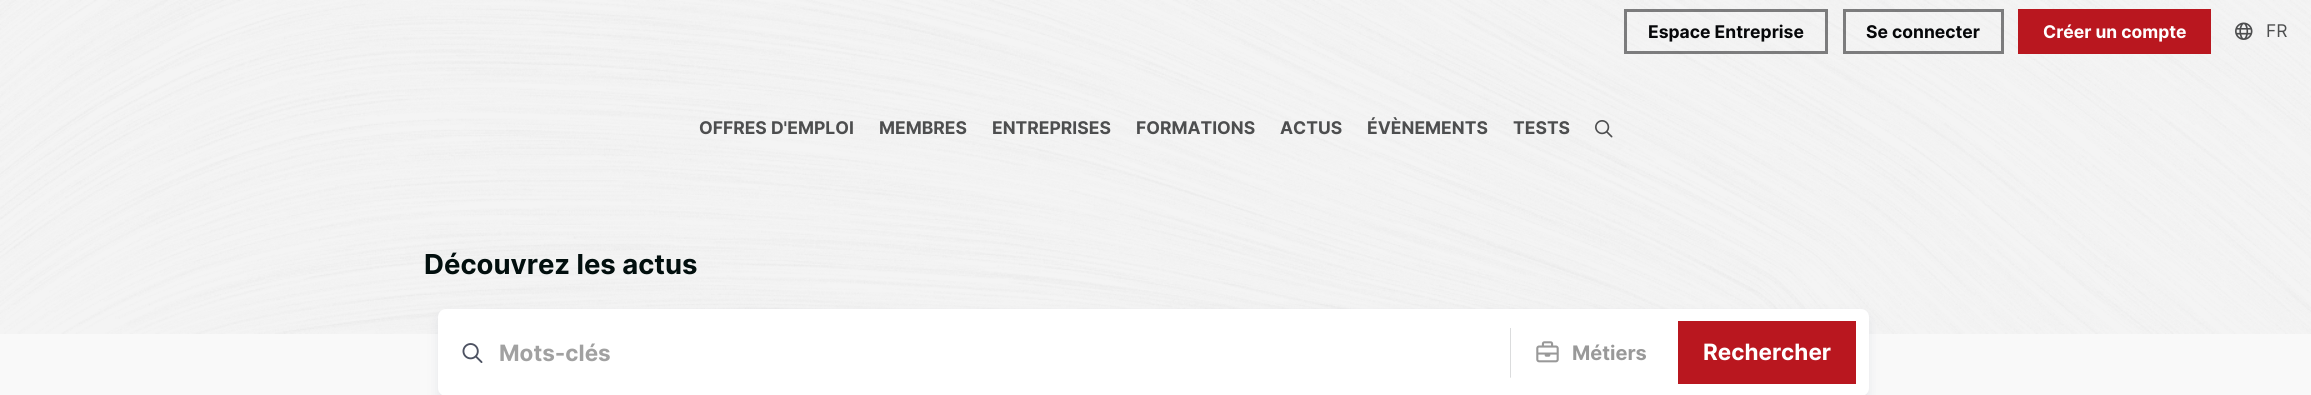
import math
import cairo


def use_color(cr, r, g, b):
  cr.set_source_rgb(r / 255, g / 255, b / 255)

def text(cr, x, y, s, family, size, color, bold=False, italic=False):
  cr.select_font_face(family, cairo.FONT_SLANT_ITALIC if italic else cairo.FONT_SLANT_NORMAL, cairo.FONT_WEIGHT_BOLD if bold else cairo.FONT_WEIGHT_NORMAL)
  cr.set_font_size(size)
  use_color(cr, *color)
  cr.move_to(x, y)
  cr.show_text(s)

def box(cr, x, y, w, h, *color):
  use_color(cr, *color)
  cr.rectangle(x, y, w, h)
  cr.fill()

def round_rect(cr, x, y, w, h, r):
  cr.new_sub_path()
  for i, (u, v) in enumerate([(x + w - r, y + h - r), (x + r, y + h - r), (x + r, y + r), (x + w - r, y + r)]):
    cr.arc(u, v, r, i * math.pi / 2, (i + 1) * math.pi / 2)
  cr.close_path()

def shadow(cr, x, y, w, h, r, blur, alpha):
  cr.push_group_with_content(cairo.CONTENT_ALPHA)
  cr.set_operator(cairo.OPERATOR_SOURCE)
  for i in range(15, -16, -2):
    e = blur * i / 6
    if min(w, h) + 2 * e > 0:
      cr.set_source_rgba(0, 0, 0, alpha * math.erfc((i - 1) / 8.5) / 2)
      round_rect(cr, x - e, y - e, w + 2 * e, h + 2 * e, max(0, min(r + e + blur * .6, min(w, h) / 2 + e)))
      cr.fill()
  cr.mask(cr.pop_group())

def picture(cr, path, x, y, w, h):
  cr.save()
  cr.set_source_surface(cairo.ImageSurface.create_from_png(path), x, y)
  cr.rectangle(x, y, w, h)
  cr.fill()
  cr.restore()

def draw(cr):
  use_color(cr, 249, 249, 249)
  cr.paint()
  box(cr, 0, 0, 2311, 334, 244, 244, 244)
  picture(cr, "img_01.png", 0, 0, 2311, 334)
  cr.rectangle(1625.5, 10.5, 201, 42)
  cr.set_source_rgba(0.024, 0.027, 0.035, 0.5)
  cr.set_line_width(3)
  cr.stroke()
  cr.rectangle(1844.5, 10.5, 158, 42)
  cr.stroke()
  box(cr, 2018, 9, 193, 45, 185, 23, 31)
  picture(cr, "img_02.png", 2235, 22, 18, 18)
  picture(cr, "img_03.png", 1595, 120, 18, 18)
  use_color(cr, 66, 71, 112)
  shadow(cr, 438, 315, 1431, 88, 8, 6, 0.1)
  use_color(cr, 255, 255, 255)
  round_rect(cr, 438, 309, 1431, 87, 8)
  cr.fill()
  picture(cr, "img_04.png", 462, 343, 21, 20)
  use_color(cr, 219, 220, 221)
  cr.new_path()
  cr.move_to(1511, 328)
  cr.line_to(1511, 378)
  cr.line_to(1510, 376)
  cr.line_to(1510, 328)
  cr.close_path()
  cr.fill()
  cr.set_source_rgba(0.063, 0.086, 0.102, 0.15)
  cr.new_path()
  cr.move_to(1511, 377.5)
  cr.line_to(1510, 377.5)
  cr.line_to(1510, 376)
  cr.close_path()
  cr.fill()
  picture(cr, "img_05.png", 1536, 341, 23, 22)
  box(cr, 1678, 321, 178, 63, 185, 23, 31)
  text(cr, 1648, 38, "Espace Entreprise", "Inter", 17.5, (6, 7, 9), bold=True)
  text(cr, 1866, 38, "Se connecter", "Inter", 17.5, (6, 7, 9), bold=True)
  text(cr, 2043, 38, "Créer un compte", "Inter", 17.5, (255, 255, 255), bold=True)
  text(cr, 2266, 37, "FR", "Inter", 17.5, (77, 78, 79))
  text(cr, 699, 134, "OFFRES D'EMPLOI", "Inter", 17.5, (77, 78, 79), bold=True)
  text(cr, 879, 134, "MEMBRES", "Inter", 17.5, (77, 78, 79), bold=True)
  text(cr, 992, 134, "ENTREPRISES", "Inter", 17.5, (77, 78, 79), bold=True)
  text(cr, 1136, 134, "FORMATIONS", "Inter", 17.5, (77, 78, 79), bold=True)
  text(cr, 1280, 134, "ACTUS", "Inter", 17.5, (77, 78, 79), bold=True)
  text(cr, 1367, 134, "ÉVÈNEMENTS", "Inter", 17.5, (77, 78, 79), bold=True)
  text(cr, 1513, 134, "TESTS", "Inter", 17.5, (77, 78, 79), bold=True)
  text(cr, 424, 274, "Découvrez les actus", "Inter", 27.5, (2, 15, 14), bold=True)
  text(cr, 499, 361, "Mots-clés", "Inter", 22.5, (161, 161, 161), bold=True)
  text(cr, 1572, 360, "Métiers", "Inter", 20, (153, 153, 153), bold=True)
  text(cr, 1703, 360, "Rechercher", "Inter", 22.5, (255, 255, 255), bold=True)


surface = cairo.ImageSurface(cairo.FORMAT_RGB24, 2311, 395)
cr = cairo.Context(surface)
options = cairo.FontOptions()
options.set_hint_metrics(cairo.HINT_METRICS_OFF)
options.set_hint_style(cairo.HINT_STYLE_NONE)
cr.set_font_options(options)
cr.set_miter_limit(4)
draw(cr)
surface.write_to_png("out.png")
